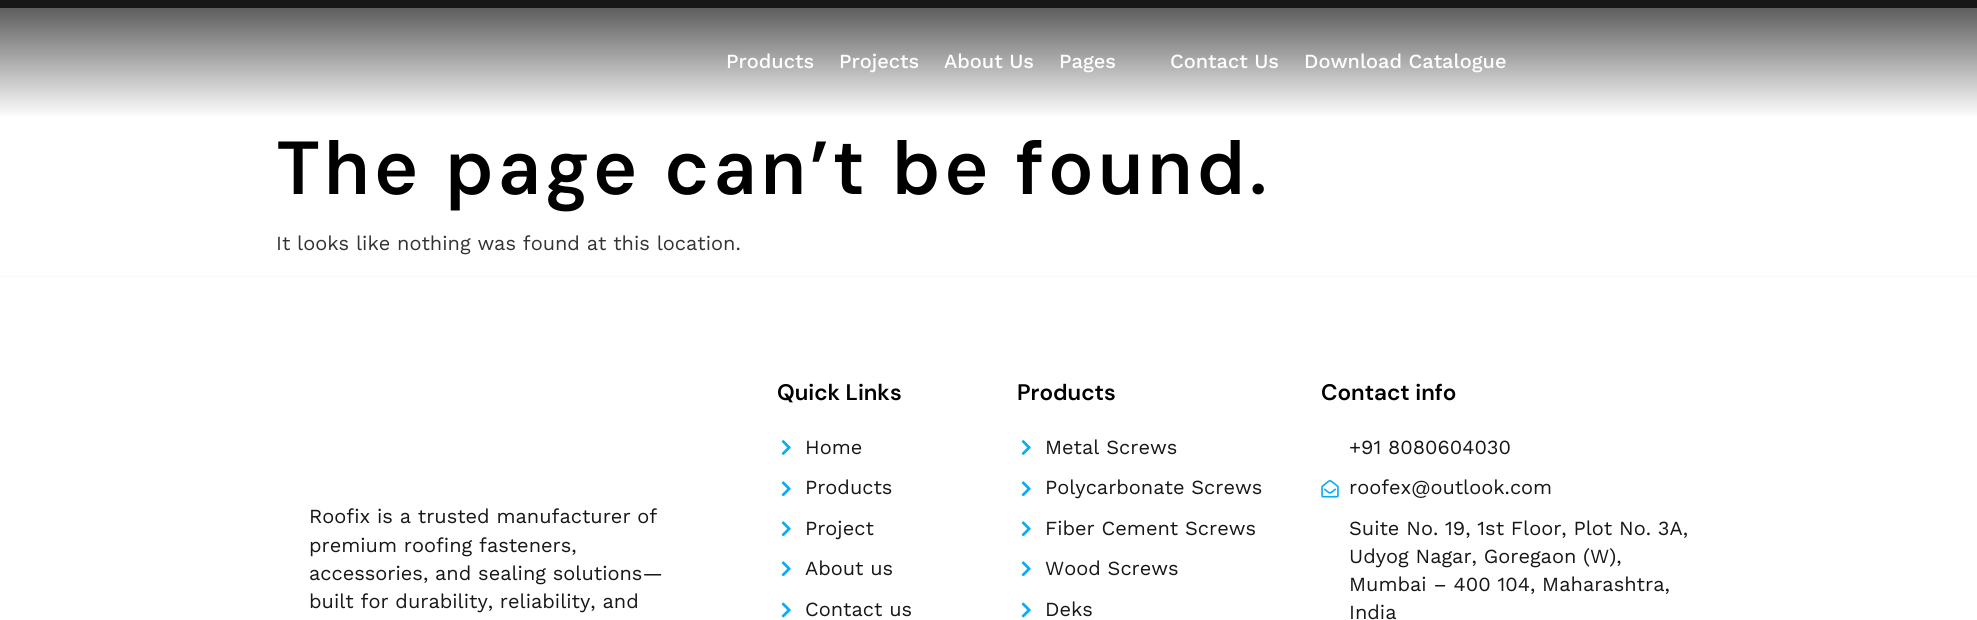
import math
import cairo


def use_color(cr, r, g, b):
  cr.set_source_rgb(r / 255, g / 255, b / 255)

def text(cr, x, y, s, family, size, color, bold=False, italic=False):
  cr.select_font_face(family, cairo.FONT_SLANT_ITALIC if italic else cairo.FONT_SLANT_NORMAL, cairo.FONT_WEIGHT_BOLD if bold else cairo.FONT_WEIGHT_NORMAL)
  cr.set_font_size(size)
  use_color(cr, *color)
  cr.move_to(x, y)
  cr.show_text(s)

def spaced_text(cr, x, y, s, letter, word):
  cr.move_to(x, y)
  for ch in s:
    cr.show_text(ch)
    cr.rel_move_to(letter + word * (ch == ' '), 0)

def box(cr, x, y, w, h, *color):
  use_color(cr, *color)
  cr.rectangle(x, y, w, h)
  cr.fill()

def picture(cr, path, x, y, w, h):
  cr.save()
  cr.set_source_surface(cairo.ImageSurface.create_from_png(path), x, y)
  cr.rectangle(x, y, w, h)
  cr.fill()
  cr.restore()

def draw(cr):
  use_color(cr, 255, 255, 255)
  cr.paint()
  box(cr, 0, 0, 1977, 8, 23, 23, 23)
  gradient = cairo.LinearGradient(989, 7.5, 989, 118)
  gradient.add_color_stop_rgba(0, 0.365, 0.365, 0.365, 1)
  gradient.add_color_stop_rgba(1, 1, 1, 1, 1)
  cr.set_source(gradient)
  cr.rectangle(0, 8, 1977, 108)
  cr.fill()
  box(cr, 0, 276, 1977, 1, 255, 249, 246)
  picture(cr, "img_01.png", 781, 440, 10, 15)
  picture(cr, "img_02.png", 781, 481, 10, 16)
  picture(cr, "img_02.png", 781, 521, 10, 16)
  picture(cr, "img_02.png", 781, 561, 10, 16)
  picture(cr, "img_03.png", 781, 602, 10, 16)
  picture(cr, "img_01.png", 1021, 440, 10, 15)
  picture(cr, "img_02.png", 1021, 481, 10, 16)
  picture(cr, "img_02.png", 1021, 521, 10, 16)
  picture(cr, "img_02.png", 1021, 561, 10, 16)
  picture(cr, "img_03.png", 1021, 602, 10, 16)
  picture(cr, "img_04.png", 1321, 480, 18, 18)
  text(cr, 726, 68, "Products", "Work Sans Medium", 20, (255, 255, 255))
  text(cr, 839, 68, "Projects", "Work Sans Medium", 20, (255, 255, 255))
  text(cr, 944, 68, "About Us", "Work Sans Medium", 20, (255, 255, 255))
  text(cr, 1059, 68, "Pages", "Work Sans Medium", 20, (255, 255, 255))
  text(cr, 1170, 68, "Contact Us", "Work Sans Medium", 20, (255, 255, 255))
  text(cr, 1304, 68, "Download Catalogue", "Work Sans Medium", 20, (255, 255, 255))
  cr.select_font_face("DM Sans SemiBold")
  cr.set_font_size(75)
  use_color(cr, 0, 0, 0)
  spaced_text(cr, 276, 194, "The page can’t be found.", 3.75, 1)
  text(cr, 276, 250, "It looks like nothing was found at this location.", "Work Sans", 20, (51, 51, 51))
  text(cr, 309, 523, "Roofix is a trusted manufacturer of", "Work Sans", 20, (23, 23, 23))
  text(cr, 309, 552, "premium roofing fasteners,", "Work Sans", 20, (23, 23, 23))
  text(cr, 309, 580, "accessories, and sealing solutions—", "Work Sans", 20, (23, 23, 23))
  text(cr, 309, 608, "built for durability, reliability, and", "Work Sans", 20, (23, 23, 23))
  text(cr, 777, 400, "Quick Links", "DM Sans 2 SemiBold", 22.5, (0, 0, 0))
  text(cr, 805, 454, "Home", "Work Sans", 20, (23, 23, 23))
  text(cr, 805, 494, "Products", "Work Sans", 20, (23, 23, 23))
  text(cr, 805, 535, "Project", "Work Sans", 20, (23, 23, 23))
  text(cr, 805, 575, "About us", "Work Sans", 20, (23, 23, 23))
  text(cr, 805, 616, "Contact us", "Work Sans", 20, (23, 23, 23))
  text(cr, 1017, 400, "Products", "DM Sans 2 SemiBold", 22.5, (0, 0, 0))
  text(cr, 1045, 454, "Metal Screws", "Work Sans", 20, (23, 23, 23))
  text(cr, 1045, 494, "Polycarbonate Screws", "Work Sans", 20, (23, 23, 23))
  text(cr, 1045, 535, "Fiber Cement Screws", "Work Sans", 20, (23, 23, 23))
  text(cr, 1045, 575, "Wood Screws", "Work Sans", 20, (23, 23, 23))
  text(cr, 1045, 616, "Deks", "Work Sans", 20, (23, 23, 23))
  text(cr, 1321, 400, "Contact info", "DM Sans 2 SemiBold", 22.5, (0, 0, 0))
  text(cr, 1349, 454, "+91 8080604030", "Work Sans", 20, (23, 23, 23))
  text(cr, 1349, 494, "roofex@outlook.com", "Work Sans", 20, (23, 23, 23))
  text(cr, 1349, 535, "Suite No. 19, 1st Floor, Plot No. 3A,", "Work Sans", 20, (23, 23, 23))
  text(cr, 1349, 563, "Udyog Nagar, Goregaon (W),", "Work Sans", 20, (23, 23, 23))
  text(cr, 1349, 591, "Mumbai – 400 104, Maharashtra,", "Work Sans", 20, (23, 23, 23))
  text(cr, 1349, 619, "India", "Work Sans", 20, (23, 23, 23))


surface = cairo.ImageSurface(cairo.FORMAT_RGB24, 1977, 620)
cr = cairo.Context(surface)
options = cairo.FontOptions()
options.set_hint_metrics(cairo.HINT_METRICS_OFF)
options.set_hint_style(cairo.HINT_STYLE_NONE)
cr.set_font_options(options)
cr.set_miter_limit(4)
draw(cr)
surface.write_to_png("out.png")
